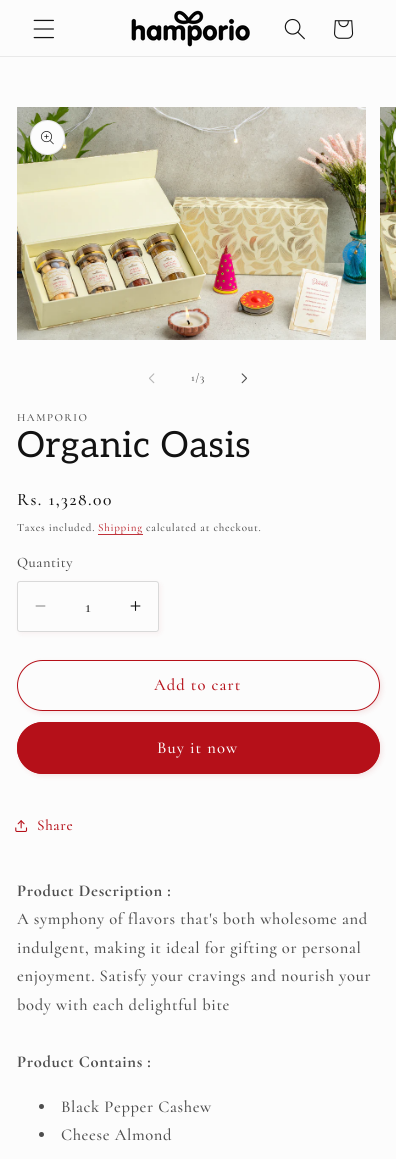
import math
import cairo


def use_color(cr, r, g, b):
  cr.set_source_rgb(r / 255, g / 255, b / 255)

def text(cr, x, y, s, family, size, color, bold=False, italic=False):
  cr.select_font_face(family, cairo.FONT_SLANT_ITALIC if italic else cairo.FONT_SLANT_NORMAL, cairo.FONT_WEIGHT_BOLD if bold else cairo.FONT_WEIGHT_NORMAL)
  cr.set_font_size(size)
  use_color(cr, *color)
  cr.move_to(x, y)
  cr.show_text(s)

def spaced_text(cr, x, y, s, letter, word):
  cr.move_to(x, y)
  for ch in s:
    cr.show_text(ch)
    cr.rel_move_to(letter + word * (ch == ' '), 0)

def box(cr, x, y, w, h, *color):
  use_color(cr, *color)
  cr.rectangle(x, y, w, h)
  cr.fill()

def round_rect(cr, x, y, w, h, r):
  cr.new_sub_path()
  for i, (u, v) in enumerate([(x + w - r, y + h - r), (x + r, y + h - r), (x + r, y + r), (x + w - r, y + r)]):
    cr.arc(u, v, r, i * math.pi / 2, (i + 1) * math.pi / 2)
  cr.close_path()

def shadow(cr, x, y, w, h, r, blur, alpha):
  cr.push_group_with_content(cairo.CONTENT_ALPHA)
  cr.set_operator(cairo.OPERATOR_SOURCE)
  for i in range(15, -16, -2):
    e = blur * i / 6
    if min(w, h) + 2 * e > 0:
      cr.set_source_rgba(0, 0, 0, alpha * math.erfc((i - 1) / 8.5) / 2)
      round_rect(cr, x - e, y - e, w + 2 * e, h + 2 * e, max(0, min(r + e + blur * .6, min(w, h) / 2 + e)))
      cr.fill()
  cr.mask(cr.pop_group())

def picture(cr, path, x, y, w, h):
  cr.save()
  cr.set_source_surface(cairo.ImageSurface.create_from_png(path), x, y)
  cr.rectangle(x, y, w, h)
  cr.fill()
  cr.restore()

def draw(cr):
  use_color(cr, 252, 252, 252)
  cr.paint()
  box(cr, 0, 56, 396, 1, 233, 233, 233)
  picture(cr, "img_01.png", 33, 19, 21, 20)
  picture(cr, "img_02.png", 131, 10, 119, 37)
  picture(cr, "img_03.png", 284, 18, 21, 22)
  picture(cr, "img_04.png", 334, 20, 20, 19)
  picture(cr, "img_05.png", 17, 107, 349, 233)
  use_color(cr, 252, 252, 252)
  cr.arc(47.5, 137.5, 17.5, 0, 2 * math.pi)
  cr.fill()
  cr.arc(47.5, 137.5, 17, 0, 2 * math.pi)
  cr.set_source_rgba(0.071, 0.071, 0.071, 0.1)
  cr.set_line_width(1)
  cr.stroke()
  picture(cr, "img_06.png", 41, 131, 13, 14)
  picture(cr, "img_07.png", 380, 107, 16, 233)
  use_color(cr, 252, 252, 252)
  cr.new_path()
  cr.move_to(410.5, 120)
  cr.line_to(396, 120)
  cr.line_to(396, 155)
  cr.line_to(410.5, 155)
  cr.curve_to(401, 155, 393, 147, 393, 137.5)
  cr.curve_to(393, 128, 401, 120, 410.5, 120)
  cr.close_path()
  cr.fill()
  round_rect(cr, 393.5, 120.5, 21, 34, 17)
  cr.set_source_rgba(0.071, 0.071, 0.071, 0.1)
  cr.stroke()
  picture(cr, "img_08.png", 149, 373, 6, 11)
  picture(cr, "img_09.png", 241, 373, 6, 11)
  box(cr, 98, 534, 45, 1, 192, 51, 59)
  use_color(cr, 181, 16, 25)
  shadow(cr, 19, 583, 142, 51, 3, 2.5, 0.05)
  use_color(cr, 252, 252, 252)
  round_rect(cr, 17, 581, 142, 51, 3)
  cr.fill()
  picture(cr, "img_10.png", 35, 605, 11, 2)
  picture(cr, "img_11.png", 130, 601, 11, 10)
  round_rect(cr, 17.5, 581.5, 141, 50, 2.5)
  use_color(cr, 217, 217, 217)
  cr.stroke()
  use_color(cr, 181, 16, 25)
  shadow(cr, 19, 662, 363, 51, 25.5, 2.5, 0.1)
  use_color(cr, 252, 252, 252)
  round_rect(cr, 17, 660, 363, 51, 25.5)
  cr.fill()
  round_rect(cr, 17.5, 660.5, 362, 50, 25)
  cr.stroke()
  round_rect(cr, 17.5, 660.5, 362, 50, 25)
  use_color(cr, 181, 16, 25)
  cr.stroke()
  use_color(cr, 181, 16, 25)
  shadow(cr, 19, 724, 363, 52, 26, 2.5, 0.1)
  use_color(cr, 181, 16, 25)
  round_rect(cr, 17, 722, 363, 52, 26)
  cr.fill()
  round_rect(cr, 17.5, 722.5, 362, 51, 25.5)
  cr.stroke()
  picture(cr, "img_12.png", 15, 820, 13, 12)
  use_color(cr, 77, 77, 77)
  cr.arc(41.5, 1106.5, 2.5, 0, 2 * math.pi)
  cr.fill()
  cr.arc(41.5, 1134.5, 2.5, 0, 2 * math.pi)
  cr.fill()
  cr.select_font_face("Cormorant Medium")
  cr.set_font_size(11)
  spaced_text(cr, 191, 381, "1/3", 0.75, 0)
  spaced_text(cr, 17, 421, "HAMPORIO", 1.5, 0)
  cr.select_font_face("Aleo")
  cr.set_font_size(36)
  use_color(cr, 18, 18, 18)
  spaced_text(cr, 17, 457, "Organic Oasis", 0.75, 0)
  cr.select_font_face("Cormorant Medium")
  cr.set_font_size(17.5)
  spaced_text(cr, 17, 505, "Rs. 1,328.00", 1.5, 0)
  cr.set_font_size(11)
  use_color(cr, 77, 77, 77)
  spaced_text(cr, 17, 531, "Taxes included.", 0.75, 0)
  use_color(cr, 192, 51, 59)
  spaced_text(cr, 98, 531, "Shipping", 0.75, 0)
  use_color(cr, 77, 77, 77)
  spaced_text(cr, 146, 531, "calculated at checkout.", 0.75, 0)
  cr.set_font_size(14.5)
  spaced_text(cr, 17, 567, "Quantity", 0.5, 0)
  text(cr, 85, 612, "1", "Cormorant Medium", 17.5, (53, 53, 53))
  cr.set_font_size(16.5)
  use_color(cr, 181, 16, 25)
  spaced_text(cr, 154, 690, "Add to cart", 1.1, 0)
  use_color(cr, 252, 252, 252)
  spaced_text(cr, 157, 753, "Buy it now", 1.1, 0)
  cr.set_font_size(15)
  use_color(cr, 181, 16, 25)
  spaced_text(cr, 37, 830, "Share", 0.65, 0)
  cr.select_font_face("Cormorant", cairo.FONT_SLANT_NORMAL, cairo.FONT_WEIGHT_BOLD)
  cr.set_font_size(16.5)
  use_color(cr, 77, 77, 77)
  spaced_text(cr, 17, 896, "Product Description :", 0.65, 0)
  cr.select_font_face("Cormorant Medium")
  spaced_text(cr, 17, 924, "A symphony of flavors that's both wholesome and", 0.65, 0)
  spaced_text(cr, 17, 953, "indulgent, making it ideal for gifting or personal", 0.65, 0)
  spaced_text(cr, 17, 981, "enjoyment. Satisfy your cravings and nourish your", 0.65, 0)
  spaced_text(cr, 17, 1010, "body with each delightful bite", 0.65, 0)
  cr.select_font_face("Cormorant", cairo.FONT_SLANT_NORMAL, cairo.FONT_WEIGHT_BOLD)
  spaced_text(cr, 17, 1067, "Product Contains :", 0.65, 0)
  cr.select_font_face("Cormorant Medium")
  spaced_text(cr, 61, 1112, "Black Pepper Cashew", 0.65, 0)
  spaced_text(cr, 61, 1140, "Cheese Almond", 0.65, 0)


surface = cairo.ImageSurface(cairo.FORMAT_RGB24, 396, 1159)
cr = cairo.Context(surface)
options = cairo.FontOptions()
options.set_hint_metrics(cairo.HINT_METRICS_OFF)
options.set_hint_style(cairo.HINT_STYLE_NONE)
cr.set_font_options(options)
cr.set_miter_limit(4)
draw(cr)
surface.write_to_png("out.png")
